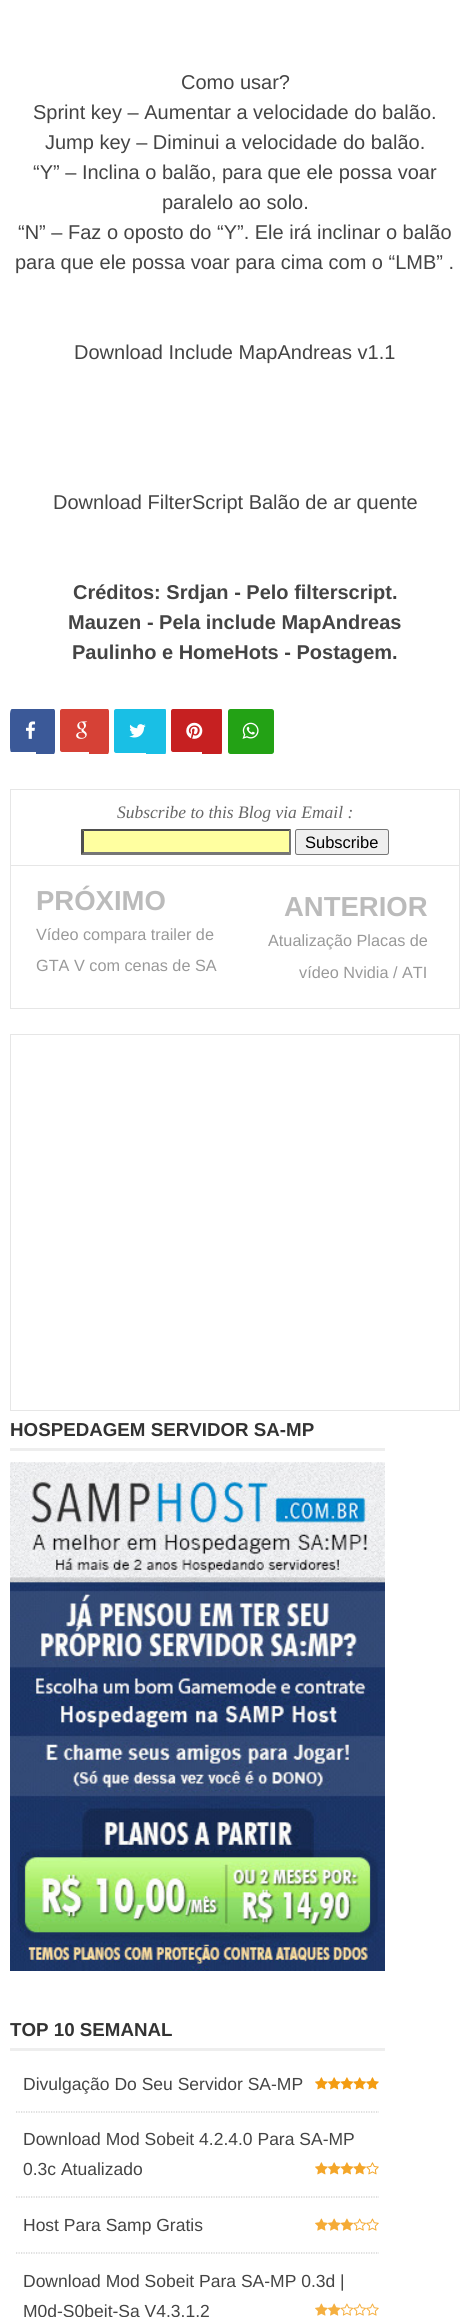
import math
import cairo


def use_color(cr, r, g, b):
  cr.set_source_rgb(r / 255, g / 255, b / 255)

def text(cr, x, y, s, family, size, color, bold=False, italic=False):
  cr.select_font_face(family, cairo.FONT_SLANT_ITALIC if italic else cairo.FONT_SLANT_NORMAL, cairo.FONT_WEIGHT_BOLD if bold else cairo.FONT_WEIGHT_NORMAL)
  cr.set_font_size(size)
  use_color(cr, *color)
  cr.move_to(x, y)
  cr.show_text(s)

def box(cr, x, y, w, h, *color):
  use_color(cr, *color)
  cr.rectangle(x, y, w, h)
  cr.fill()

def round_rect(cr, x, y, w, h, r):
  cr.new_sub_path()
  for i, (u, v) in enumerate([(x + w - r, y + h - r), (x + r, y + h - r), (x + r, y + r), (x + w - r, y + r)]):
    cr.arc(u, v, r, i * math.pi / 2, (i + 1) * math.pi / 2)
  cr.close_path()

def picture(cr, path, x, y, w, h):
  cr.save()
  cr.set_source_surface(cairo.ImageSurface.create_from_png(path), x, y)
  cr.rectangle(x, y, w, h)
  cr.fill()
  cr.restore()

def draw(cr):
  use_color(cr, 255, 255, 255)
  cr.paint()
  cr.save()
  cr.rectangle(10, 0, 450, 758)
  cr.clip()
  use_color(cr, 59, 89, 152)
  cr.new_path()
  cr.move_to(12, 709)
  cr.line_to(36, 709)
  cr.line_to(36, 752)
  cr.line_to(11, 752)
  cr.curve_to(9, 751, 10, 728, 10, 724)
  cr.curve_to(10, 722, 9, 709, 12, 709)
  cr.close_path()
  cr.fill()
  cr.restore()
  use_color(cr, 59, 89, 152)
  cr.new_path()
  cr.move_to(36, 709)
  cr.line_to(54, 709)
  cr.curve_to(54, 709, 55, 710, 55, 711)
  cr.line_to(55, 751)
  cr.curve_to(55, 753, 54, 754, 54, 754)
  cr.line_to(36, 754)
  cr.close_path()
  cr.fill()
  picture(cr, "img_01.png", 26, 721, 10, 18)
  use_color(cr, 214, 65, 54)
  cr.new_path()
  cr.move_to(62, 709)
  cr.line_to(89, 709)
  cr.line_to(89, 752)
  cr.line_to(62, 752)
  cr.curve_to(61, 752, 60, 751, 60, 750)
  cr.line_to(60, 711)
  cr.curve_to(60, 710, 61, 709, 62, 709)
  cr.close_path()
  cr.move_to(89, 709)
  cr.line_to(108, 709)
  cr.curve_to(108, 709, 109, 710, 109, 711)
  cr.line_to(109, 751)
  cr.curve_to(109, 753, 108, 754, 108, 754)
  cr.line_to(89, 754)
  cr.close_path()
  cr.fill()
  picture(cr, "img_02.png", 76, 721, 12, 18)
  use_color(cr, 25, 191, 229)
  cr.new_path()
  cr.move_to(116, 709)
  cr.line_to(146, 709)
  cr.line_to(146, 753)
  cr.line_to(116, 753)
  cr.curve_to(115, 753, 114, 752, 114, 751)
  cr.line_to(114, 711)
  cr.curve_to(114, 710, 115, 709, 116, 709)
  cr.close_path()
  cr.fill()
  cr.new_path()
  cr.move_to(146, 709)
  cr.line_to(165, 709)
  cr.curve_to(166, 709, 166, 710, 166, 711)
  cr.line_to(166, 751)
  cr.curve_to(166, 753, 166, 754, 165, 754)
  cr.line_to(146, 754)
  cr.close_path()
  cr.fill()
  picture(cr, "img_03.png", 129, 724, 17, 14)
  use_color(cr, 198, 32, 33)
  cr.new_path()
  cr.move_to(173, 709)
  cr.line_to(202, 709)
  cr.line_to(202, 752)
  cr.line_to(173, 752)
  cr.curve_to(172, 752, 171, 751, 171, 750)
  cr.line_to(171, 711)
  cr.curve_to(171, 710, 172, 709, 173, 709)
  cr.close_path()
  cr.move_to(202, 709)
  cr.line_to(221, 709)
  cr.curve_to(222, 709, 222, 710, 222, 711)
  cr.line_to(222, 751)
  cr.curve_to(222, 753, 222, 754, 221, 754)
  cr.line_to(202, 754)
  cr.close_path()
  cr.fill()
  picture(cr, "img_04.png", 186, 722, 17, 17)
  use_color(cr, 35, 162, 21)
  round_rect(cr, 228, 709, 46, 45, 2.5)
  cr.fill()
  picture(cr, "img_05.png", 242, 722, 17, 17)
  box(cr, 10, 789, 450, 1, 230, 230, 230)
  box(cr, 459, 789, 1, 76, 230, 230, 230)
  box(cr, 10, 789, 1, 76, 230, 230, 230)
  box(cr, 81, 829, 210, 26, 255, 255, 160)
  use_color(cr, 79, 79, 79)
  cr.new_path()
  cr.move_to(81, 829)
  cr.line_to(291, 829)
  cr.line_to(289, 831)
  cr.line_to(84, 831)
  cr.close_path()
  cr.fill()
  use_color(cr, 118, 118, 118)
  cr.new_path()
  cr.move_to(291, 829)
  cr.line_to(291, 855)
  cr.line_to(289, 852.5)
  cr.line_to(289, 831)
  cr.close_path()
  cr.fill()
  cr.new_path()
  cr.move_to(291, 855)
  cr.line_to(81, 855)
  cr.line_to(84, 852)
  cr.line_to(289, 852)
  cr.close_path()
  cr.fill()
  use_color(cr, 79, 79, 79)
  cr.new_path()
  cr.move_to(81, 855)
  cr.line_to(81, 829)
  cr.line_to(84, 831)
  cr.line_to(84, 852.5)
  cr.close_path()
  cr.fill()
  use_color(cr, 239, 239, 239)
  round_rect(cr, 295.5, 829.5, 93, 25, 2)
  cr.fill_preserve()
  use_color(cr, 118, 118, 118)
  cr.set_line_width(1)
  cr.stroke()
  cr.rectangle(10.5, 865.5, 449, 143)
  use_color(cr, 230, 230, 230)
  cr.stroke()
  cr.rectangle(10.5, 1034.5, 449, 376)
  cr.stroke()
  box(cr, 10, 1448, 375, 3, 238, 238, 238)
  picture(cr, "img_06.png", 10, 1462, 375, 509)
  box(cr, 10, 2048, 375, 3, 238, 238, 238)
  cr.new_path()
  cr.move_to(16, 2112)
  cr.line_to(379, 2112)
  use_color(cr, 204, 204, 204)
  cr.set_line_width(1.2)
  cr.set_dash([1.25, 1.25])
  cr.stroke()
  picture(cr, "img_07.png", 315, 2077, 64, 13)
  cr.new_path()
  cr.move_to(16, 2197)
  cr.line_to(379, 2197)
  cr.stroke()
  picture(cr, "img_08.png", 315, 2162, 64, 13)
  cr.new_path()
  cr.move_to(16, 2253)
  cr.line_to(379, 2253)
  cr.stroke()
  picture(cr, "img_09.png", 315, 2218, 64, 13)
  picture(cr, "img_10.png", 315, 2303, 64, 13)
  text(cr, 181, 89, "Como usar?", "Liberation Sans", 20, (68, 68, 68))
  text(cr, 33, 119, "Sprint key – Aumentar a velocidade do balão.", "Liberation Sans", 20, (68, 68, 68))
  text(cr, 45, 149, "Jump key – Diminui a velocidade do balão.", "Liberation Sans", 20, (68, 68, 68))
  text(cr, 33, 179, "“Y” – Inclina o balão, para que ele possa voar", "Liberation Sans", 20, (68, 68, 68))
  text(cr, 162, 209, "paralelo ao solo.", "Liberation Sans", 20, (68, 68, 68))
  text(cr, 18, 239, "“N” – Faz o oposto do “Y”. Ele irá inclinar o balão", "Liberation Sans", 20, (68, 68, 68))
  text(cr, 15, 269, "para que ele possa voar para cima com o “LMB” .", "Liberation Sans", 20, (68, 68, 68))
  text(cr, 74, 359, "Download Include MapAndreas v1.1", "Liberation Sans", 20, (68, 68, 68))
  text(cr, 53, 509, "Download FilterScript Balão de ar quente", "Liberation Sans", 20, (68, 68, 68))
  text(cr, 73, 599, "Créditos: Srdjan - Pelo filterscript.", "Liberation Sans", 20, (68, 68, 68), bold=True)
  text(cr, 68, 629, "Mauzen - Pela include MapAndreas", "Liberation Sans", 20, (68, 68, 68), bold=True)
  text(cr, 72, 659, "Paulinho e HomeHots - Postagem.", "Liberation Sans", 20, (68, 68, 68), bold=True)
  text(cr, 117, 818, "Subscribe to this Blog via Email :", "Liberation Serif", 17.5, (102, 102, 102), italic=True)
  text(cr, 305, 848, "Subscribe", "Liberation Sans", 16.5, (0, 0, 0))
  text(cr, 36, 910, "PRÓXIMO", "Liberation Sans", 27.5, (187, 187, 187), bold=True)
  text(cr, 36, 940, "Vídeo compara trailer de", "Liberation Sans", 16.25, (153, 153, 153))
  text(cr, 36, 971, "GTA V com cenas de SA", "Liberation Sans", 16.25, (153, 153, 153))
  text(cr, 284, 916, "ANTERIOR", "Liberation Sans", 27.5, (187, 187, 187), bold=True)
  text(cr, 268, 946, "Atualização Placas de", "Liberation Sans", 16.25, (153, 153, 153))
  text(cr, 299, 978, "vídeo Nvidia / ATI", "Liberation Sans", 16.25, (153, 153, 153))
  text(cr, 10, 1436, "HOSPEDAGEM SERVIDOR SA-MP", "Liberation Sans", 18.75, (51, 51, 51), bold=True)
  text(cr, 10, 2036, "TOP 10 SEMANAL", "Liberation Sans", 18.75, (51, 51, 51), bold=True)
  text(cr, 23, 2090, "Divulgação Do Seu Servidor SA-MP", "Liberation Sans", 17.5, (68, 68, 68))
  text(cr, 23, 2145, "Download Mod Sobeit 4.2.4.0 Para SA-MP", "Liberation Sans", 17.5, (68, 68, 68))
  text(cr, 23, 2175, "0.3c Atualizado", "Liberation Sans", 17.5, (68, 68, 68))
  text(cr, 23, 2231, "Host Para Samp Gratis", "Liberation Sans", 17.5, (68, 68, 68))
  text(cr, 23, 2287, "Download Mod Sobeit Para SA-MP 0.3d |", "Liberation Sans", 17.5, (68, 68, 68))
  text(cr, 23, 2317, "M0d-S0beit-Sa V4.3.1.2", "Liberation Sans", 17.5, (68, 68, 68))


surface = cairo.ImageSurface(cairo.FORMAT_RGB24, 470, 2317)
cr = cairo.Context(surface)
options = cairo.FontOptions()
options.set_hint_metrics(cairo.HINT_METRICS_OFF)
options.set_hint_style(cairo.HINT_STYLE_NONE)
cr.set_font_options(options)
cr.set_miter_limit(4)
draw(cr)
surface.write_to_png("out.png")
